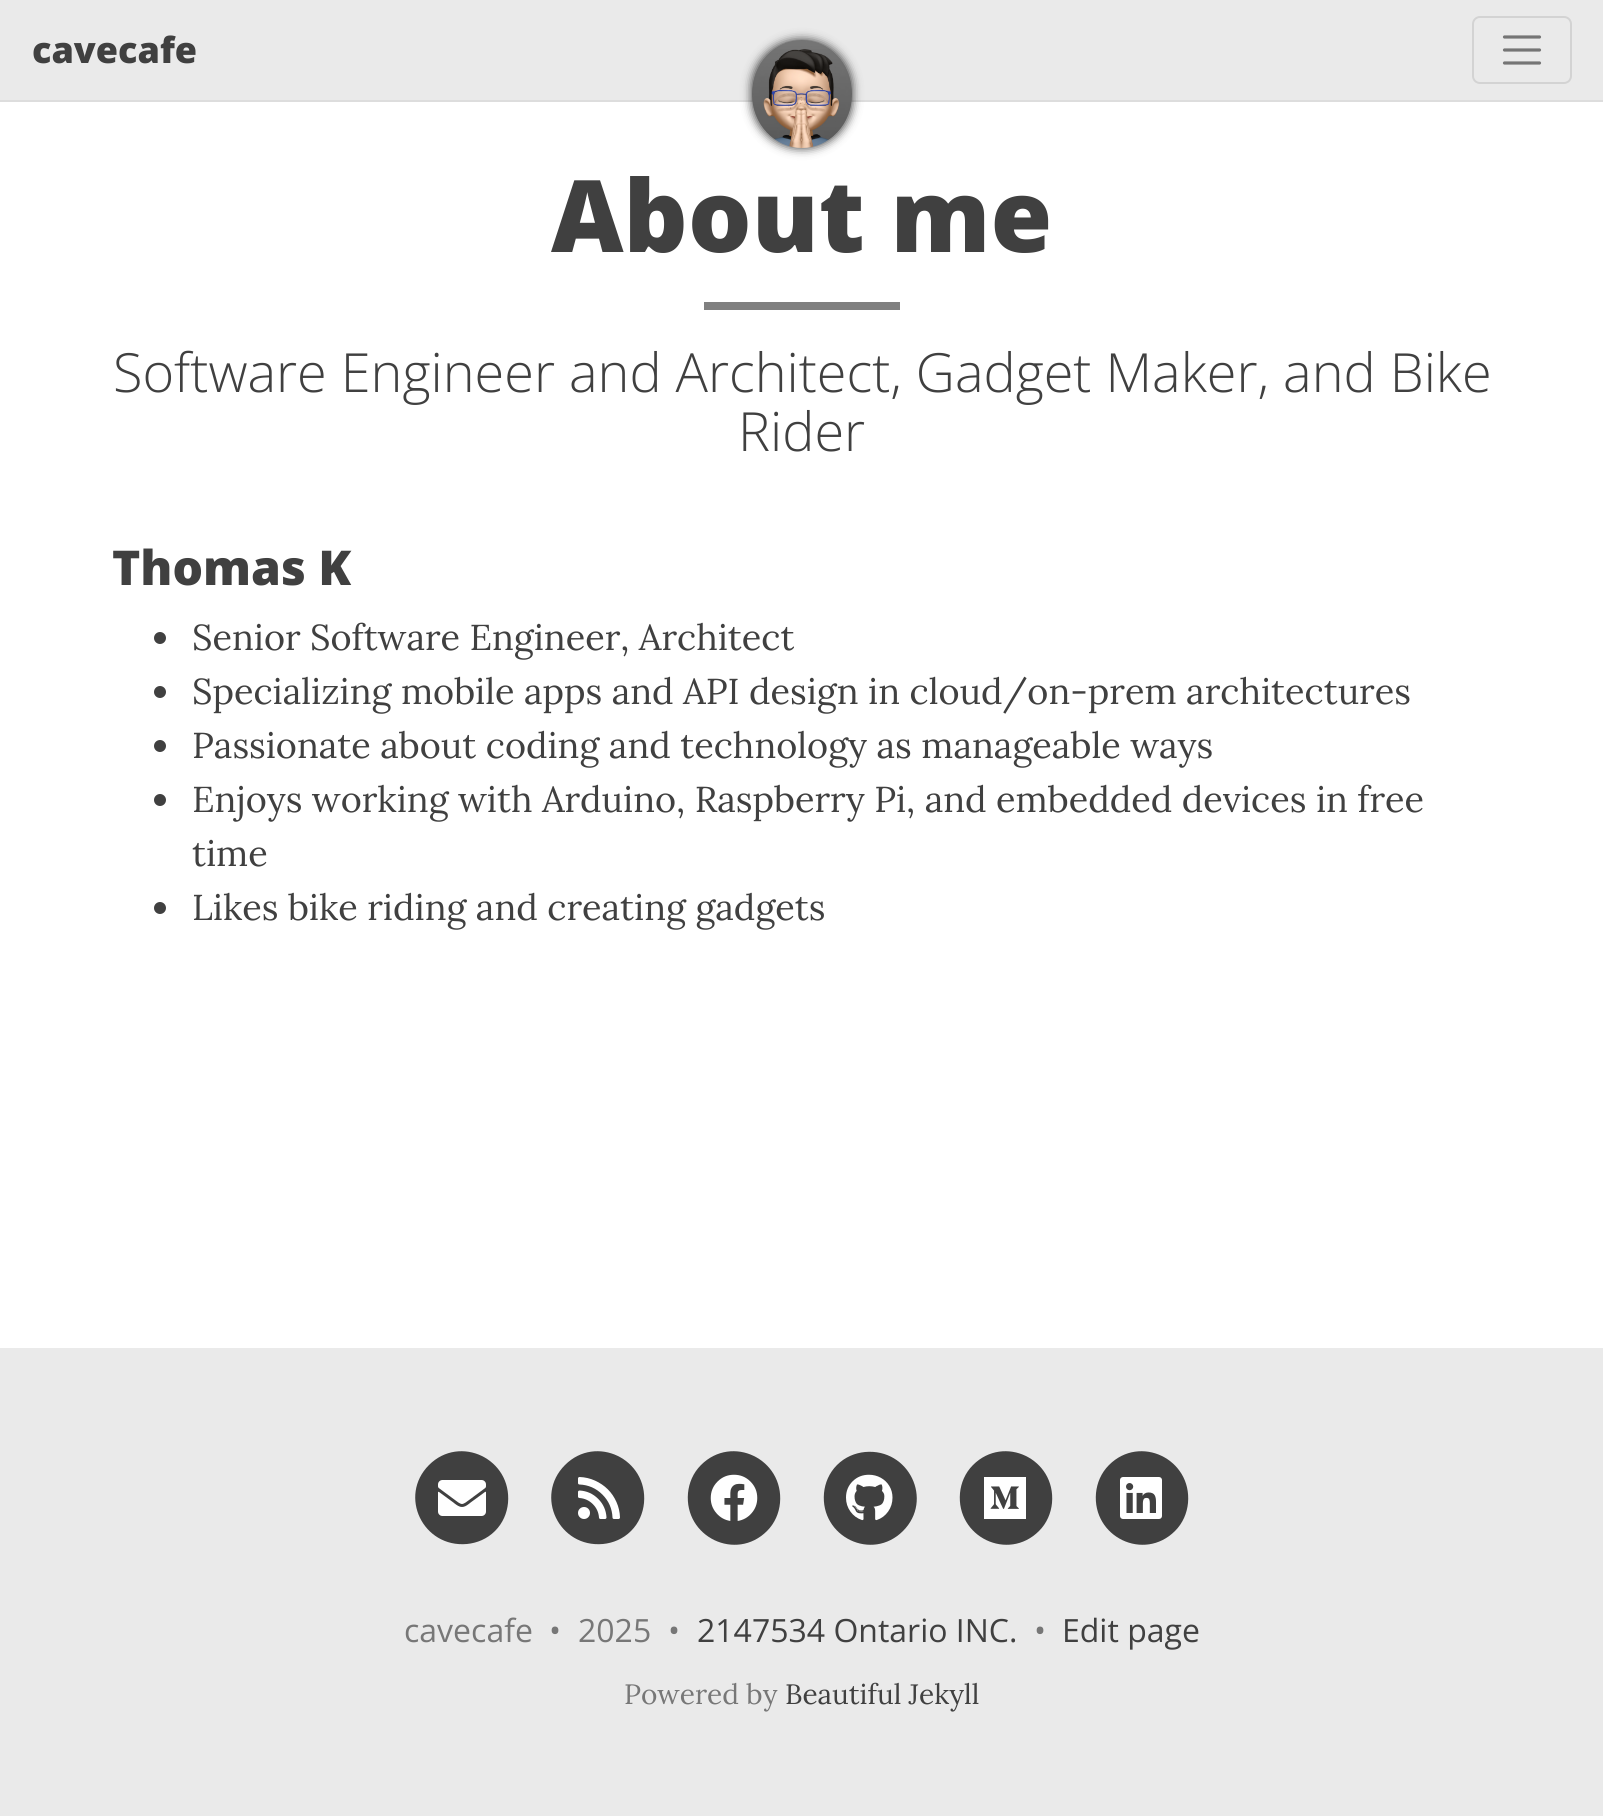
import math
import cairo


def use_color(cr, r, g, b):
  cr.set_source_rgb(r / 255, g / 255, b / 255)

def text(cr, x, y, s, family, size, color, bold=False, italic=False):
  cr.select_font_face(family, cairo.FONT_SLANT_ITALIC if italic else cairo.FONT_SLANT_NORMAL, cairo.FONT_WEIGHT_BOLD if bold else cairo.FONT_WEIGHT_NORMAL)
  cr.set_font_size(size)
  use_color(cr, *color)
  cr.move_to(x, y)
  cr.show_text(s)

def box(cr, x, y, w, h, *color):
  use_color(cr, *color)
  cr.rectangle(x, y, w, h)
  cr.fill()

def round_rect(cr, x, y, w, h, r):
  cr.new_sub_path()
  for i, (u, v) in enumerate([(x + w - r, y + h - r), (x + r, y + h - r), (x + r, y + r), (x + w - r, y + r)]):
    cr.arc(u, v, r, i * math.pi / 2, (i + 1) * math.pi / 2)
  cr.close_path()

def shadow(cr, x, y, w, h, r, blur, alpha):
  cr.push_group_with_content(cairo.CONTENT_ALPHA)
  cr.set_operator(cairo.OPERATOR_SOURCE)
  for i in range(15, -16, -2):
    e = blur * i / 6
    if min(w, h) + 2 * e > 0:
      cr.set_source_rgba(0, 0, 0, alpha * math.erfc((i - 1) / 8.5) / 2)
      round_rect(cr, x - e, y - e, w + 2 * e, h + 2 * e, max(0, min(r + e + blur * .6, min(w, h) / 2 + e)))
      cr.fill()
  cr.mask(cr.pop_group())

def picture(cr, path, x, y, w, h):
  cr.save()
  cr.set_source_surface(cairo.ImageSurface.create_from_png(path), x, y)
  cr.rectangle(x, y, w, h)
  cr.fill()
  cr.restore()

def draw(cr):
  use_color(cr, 255, 255, 255)
  cr.paint()
  box(cr, 0, 0, 1603, 100, 234, 234, 234)
  box(cr, 0, 100, 1603, 2, 221, 221, 221)
  use_color(cr, 0, 0, 0)
  shadow(cr, 752, 40, 100, 108, 50, 5, 0.8)
  picture(cr, "img_01.png", 752, 40, 100, 108)
  round_rect(cr, 1473, 17, 98, 66, 7)
  use_color(cr, 211, 211, 211)
  cr.stroke()
  cr.new_path()
  cr.move_to(1504.5, 37)
  cr.line_to(1539.5, 37)
  cr.move_to(1504.5, 50)
  cr.line_to(1539.5, 50)
  cr.move_to(1504.5, 63)
  cr.line_to(1539.5, 63)
  use_color(cr, 117, 117, 117)
  cr.set_line_width(3.2)
  cr.set_line_cap(cairo.LINE_CAP_ROUND)
  cr.stroke()
  box(cr, 704, 302, 196, 8, 128, 128, 128)
  use_color(cr, 64, 64, 64)
  cr.arc(160, 638, 6, 0, 2 * math.pi)
  cr.fill()
  cr.arc(160, 692, 6, 0, 2 * math.pi)
  cr.fill()
  cr.arc(160, 746, 6, 0, 2 * math.pi)
  cr.fill()
  cr.arc(160, 800, 6, 0, 2 * math.pi)
  cr.fill()
  cr.arc(160, 908, 6, 0, 2 * math.pi)
  cr.fill()
  box(cr, 0, 1348, 1603, 468, 234, 234, 234)
  use_color(cr, 64, 64, 64)
  cr.new_path()
  cr.move_to(429, 1465)
  cr.curve_to(460, 1434, 512, 1459, 508, 1503)
  cr.curve_to(507, 1513, 503, 1523, 495, 1531)
  cr.curve_to(487, 1539, 477, 1543, 467, 1544)
  cr.curve_to(423, 1548, 398, 1496, 429, 1465)
  cr.close_path()
  cr.fill()
  picture(cr, "img_02.png", 438, 1480, 48, 36)
  cr.new_path()
  cr.move_to(565, 1465)
  cr.curve_to(596, 1434, 648, 1459, 644, 1503)
  cr.curve_to(643, 1513, 639, 1523, 631, 1531)
  cr.curve_to(623, 1539, 613, 1543, 603, 1544)
  cr.curve_to(559, 1548, 534, 1496, 565, 1465)
  cr.close_path()
  cr.fill()
  picture(cr, "img_03.png", 578, 1477, 42, 42)
  cr.new_path()
  cr.move_to(701, 1465)
  cr.curve_to(732, 1434, 784, 1459, 780, 1503)
  cr.curve_to(779, 1513, 775, 1523, 767, 1531)
  cr.curve_to(736, 1562, 684, 1537, 688, 1493)
  cr.curve_to(689, 1483, 693, 1473, 701, 1465)
  cr.close_path()
  cr.fill()
  picture(cr, "img_04.png", 710, 1474, 48, 47)
  cr.new_path()
  cr.move_to(837, 1465)
  cr.curve_to(845, 1457, 855, 1453, 865, 1452)
  cr.curve_to(909, 1448, 934, 1500, 903, 1531)
  cr.curve_to(872, 1562, 820, 1537, 824, 1493)
  cr.curve_to(825, 1483, 829, 1473, 837, 1465)
  cr.close_path()
  cr.fill()
  picture(cr, "img_05.png", 846, 1474, 47, 47)
  cr.new_path()
  cr.move_to(973, 1465)
  cr.curve_to(1004, 1434, 1056, 1459, 1052, 1503)
  cr.curve_to(1051, 1513, 1047, 1523, 1039, 1531)
  cr.curve_to(1008, 1562, 956, 1537, 960, 1493)
  cr.curve_to(961, 1483, 965, 1473, 973, 1465)
  cr.close_path()
  cr.fill()
  picture(cr, "img_06.png", 984, 1477, 42, 42)
  cr.new_path()
  cr.move_to(1109, 1465)
  cr.curve_to(1140, 1434, 1192, 1459, 1188, 1503)
  cr.curve_to(1187, 1513, 1183, 1523, 1175, 1531)
  cr.curve_to(1144, 1562, 1092, 1537, 1096, 1493)
  cr.curve_to(1097, 1483, 1101, 1473, 1109, 1465)
  cr.close_path()
  cr.fill()
  picture(cr, "img_07.png", 1120, 1477, 42, 42)
  text(cr, 32, 63, "cavecafe", "Open Sans ExtraBold", 36, (64, 64, 64))
  text(cr, 551, 252, "About me", "Open Sans ExtraBold", 100, (64, 64, 64))
  text(cr, 113, 392, "Software Engineer and Architect, Gadget Maker, and Bike", "Open Sans Light", 54, (64, 64, 64))
  text(cr, 738, 451, "Rider", "Open Sans Light", 54, (64, 64, 64))
  text(cr, 112, 585, "Thomas K", "Open Sans ExtraBold", 48, (64, 64, 64))
  text(cr, 192, 650, "Senior Software Engineer, Architect", "Lora", 36, (64, 64, 64))
  text(cr, 192, 704, "Specializing mobile apps and API design in cloud/on-prem architectures", "Lora", 36, (64, 64, 64))
  text(cr, 192, 758, "Passionate about coding and technology as manageable ways", "Lora", 36, (64, 64, 64))
  text(cr, 192, 812, "Enjoys working with Arduino, Raspberry Pi, and embedded devices in free", "Lora", 36, (64, 64, 64))
  text(cr, 192, 866, "time", "Lora", 36, (64, 64, 64))
  text(cr, 192, 920, "Likes bike riding and creating gadgets", "Lora", 36, (64, 64, 64))
  text(cr, 404, 1642, "cavecafe", "Open Sans", 32, (119, 119, 119))
  text(cr, 549, 1642, "•", "Open Sans", 32, (119, 119, 119))
  text(cr, 578, 1642, "2025", "Open Sans", 32, (119, 119, 119))
  text(cr, 668, 1642, "•", "Open Sans", 32, (119, 119, 119))
  text(cr, 697, 1642, "2147534 Ontario INC.", "Open Sans", 32, (64, 64, 64))
  text(cr, 1034, 1642, "•", "Open Sans", 32, (119, 119, 119))
  text(cr, 1062, 1642, "Edit page", "Open Sans", 32, (64, 64, 64))
  text(cr, 624, 1704, "Powered by", "Lora", 28, (119, 119, 119))
  text(cr, 785, 1704, "Beautiful Jekyll", "Lora", 28, (64, 64, 64))


surface = cairo.ImageSurface(cairo.FORMAT_RGB24, 1603, 1816)
cr = cairo.Context(surface)
options = cairo.FontOptions()
options.set_hint_metrics(cairo.HINT_METRICS_OFF)
options.set_hint_style(cairo.HINT_STYLE_NONE)
cr.set_font_options(options)
cr.set_miter_limit(4)
draw(cr)
surface.write_to_png("out.png")
